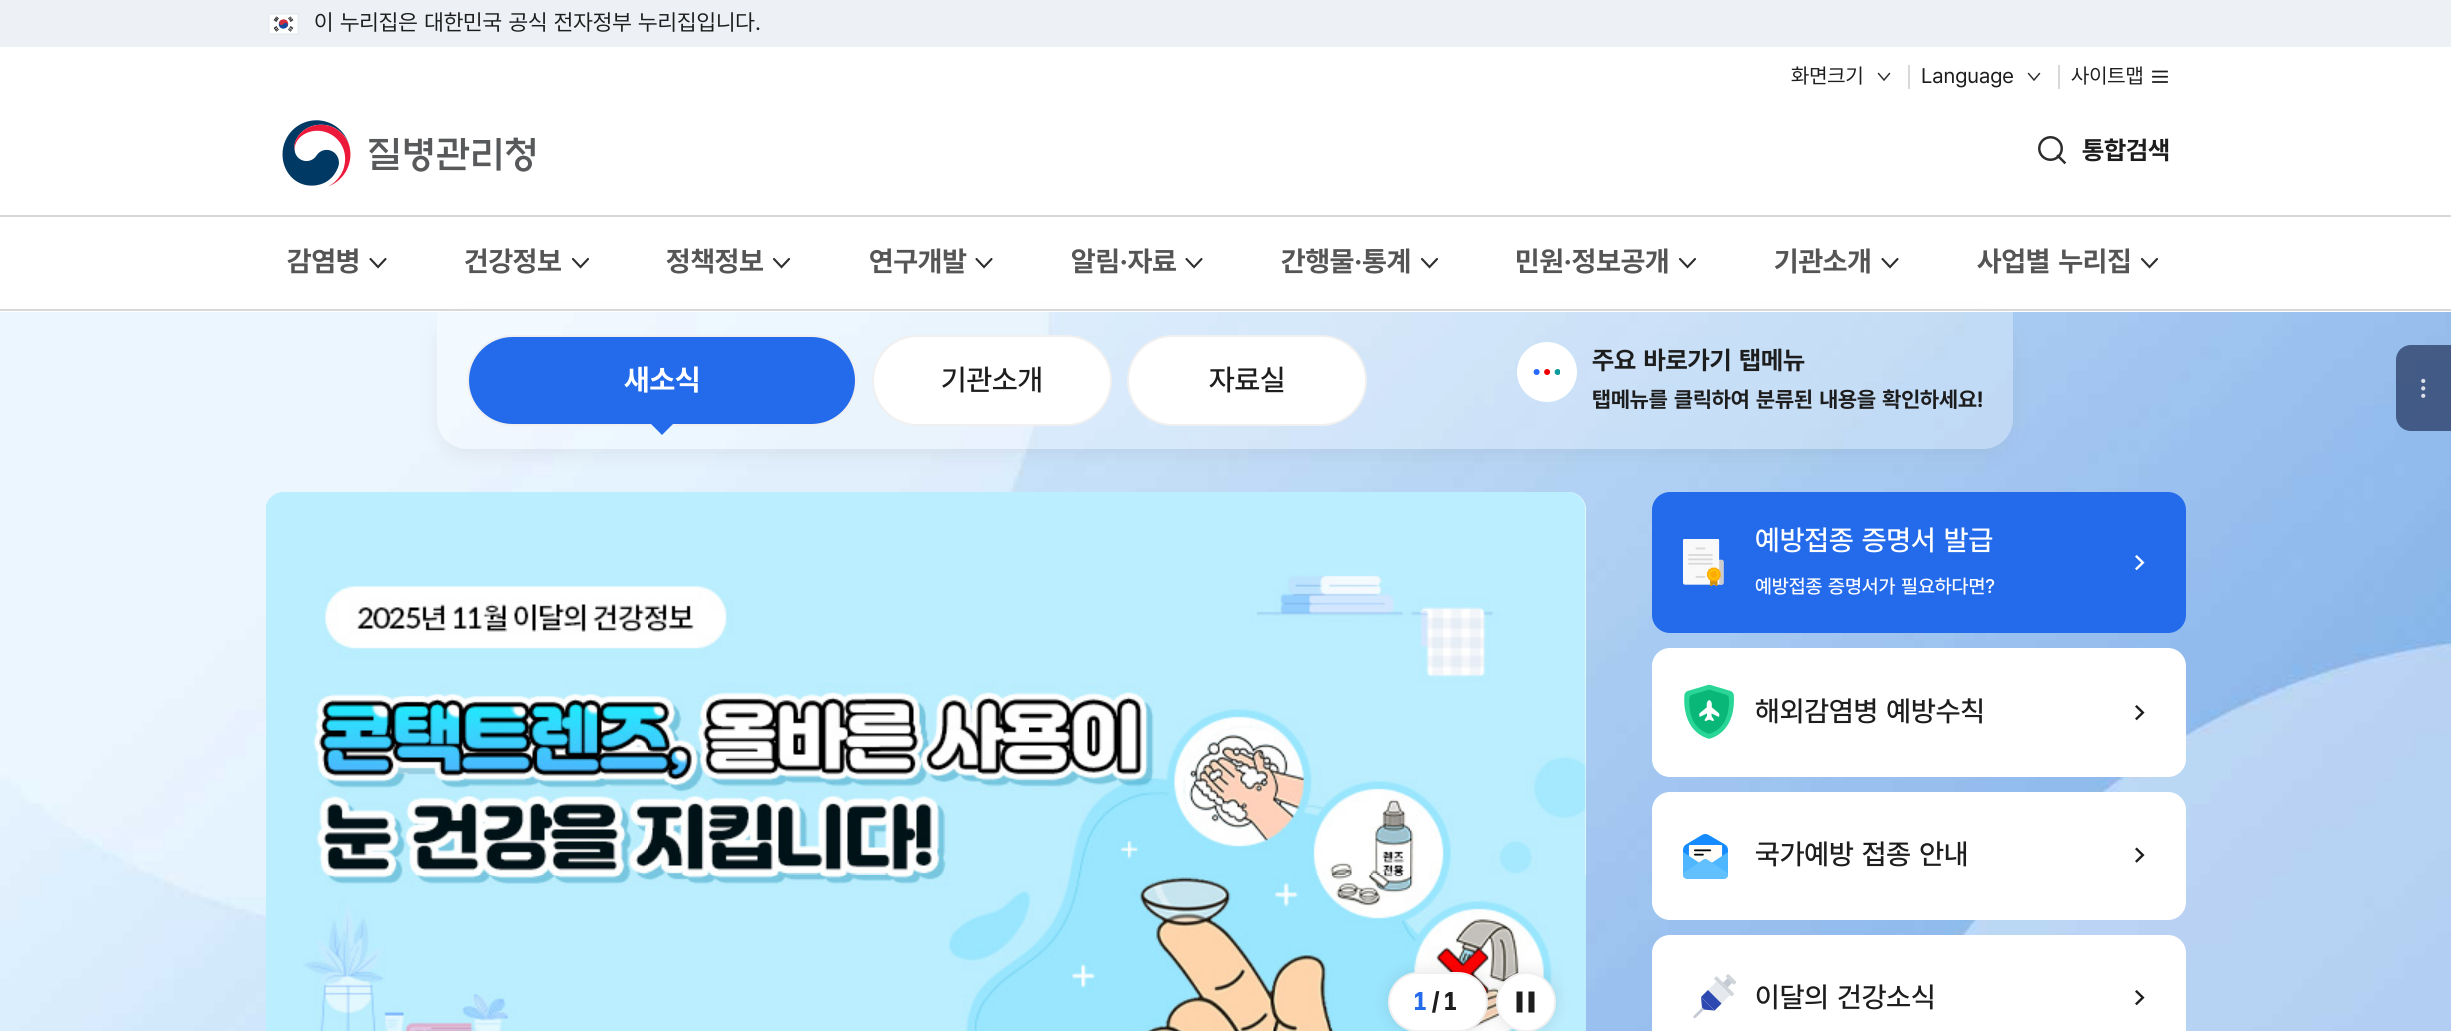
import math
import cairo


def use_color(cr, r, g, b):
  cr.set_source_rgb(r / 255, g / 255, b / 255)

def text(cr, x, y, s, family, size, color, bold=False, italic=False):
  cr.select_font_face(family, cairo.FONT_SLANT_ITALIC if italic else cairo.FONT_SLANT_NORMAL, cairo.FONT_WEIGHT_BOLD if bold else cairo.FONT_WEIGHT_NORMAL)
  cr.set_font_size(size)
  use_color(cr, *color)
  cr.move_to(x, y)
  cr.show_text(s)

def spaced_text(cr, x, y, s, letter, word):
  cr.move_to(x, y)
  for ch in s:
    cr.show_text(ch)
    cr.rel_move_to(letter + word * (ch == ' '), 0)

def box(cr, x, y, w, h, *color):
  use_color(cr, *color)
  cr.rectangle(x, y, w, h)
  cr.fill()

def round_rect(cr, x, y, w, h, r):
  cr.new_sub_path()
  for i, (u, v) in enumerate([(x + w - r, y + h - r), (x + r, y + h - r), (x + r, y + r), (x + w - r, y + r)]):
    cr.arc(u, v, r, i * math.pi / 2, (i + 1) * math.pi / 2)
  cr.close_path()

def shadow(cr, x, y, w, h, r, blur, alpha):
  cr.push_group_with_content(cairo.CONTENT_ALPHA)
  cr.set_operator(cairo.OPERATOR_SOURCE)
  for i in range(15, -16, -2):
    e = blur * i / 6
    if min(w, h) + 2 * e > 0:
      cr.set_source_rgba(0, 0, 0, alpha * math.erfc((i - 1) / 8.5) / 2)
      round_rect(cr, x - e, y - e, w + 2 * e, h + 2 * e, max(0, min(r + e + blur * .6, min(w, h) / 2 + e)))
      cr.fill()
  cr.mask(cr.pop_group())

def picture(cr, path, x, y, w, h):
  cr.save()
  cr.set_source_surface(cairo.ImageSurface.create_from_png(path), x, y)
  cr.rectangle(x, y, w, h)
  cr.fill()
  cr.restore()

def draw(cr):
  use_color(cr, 255, 255, 255)
  cr.paint()
  box(cr, 0, 0, 2451, 47, 237, 241, 245)
  picture(cr, "img_01.png", 268, 13, 31, 22)
  picture(cr, "img_04.png", 0, 312, 2451, 719)
  cr.save()
  cr.set_fill_rule(cairo.FILL_RULE_EVEN_ODD)
  cr.new_path()
  cr.move_to(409, 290)
  cr.line_to(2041, 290)
  cr.line_to(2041, 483)
  cr.line_to(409, 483)
  cr.close_path()
  cr.move_to(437, 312)
  cr.line_to(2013, 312)
  cr.line_to(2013, 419)
  cr.curve_to(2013, 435.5, 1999.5, 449, 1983, 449)
  cr.line_to(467, 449)
  cr.curve_to(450.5, 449, 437, 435.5, 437, 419)
  cr.close_path()
  cr.clip()
  use_color(cr, 100, 100, 100)
  shadow(cr, 437, 318, 1576, 137, 30, 9, 0.1)
  cr.restore()
  box(cr, 458, 309, 1534, 3, 255, 255, 255)
  cr.new_path()
  cr.move_to(1878.5, 73.5)
  cr.line_to(1884, 80)
  cr.line_to(1889.5, 73.5)
  use_color(cr, 45, 45, 45)
  cr.set_line_width(1.5)
  cr.set_line_cap(cairo.LINE_CAP_ROUND)
  cr.stroke()
  box(cr, 1908, 65, 2, 24, 216, 216, 216)
  cr.new_path()
  cr.move_to(2028.5, 73.5)
  cr.line_to(2034, 80)
  cr.line_to(2039.5, 73.5)
  use_color(cr, 45, 45, 45)
  cr.stroke()
  box(cr, 2058, 65, 2, 24, 216, 216, 216)
  picture(cr, "img_02.png", 2152, 70, 16, 13)
  picture(cr, "img_03.png", 282, 120, 253, 67)
  cr.arc(2050.5, 148.5, 11.25, 0, 2 * math.pi)
  use_color(cr, 45, 45, 45)
  cr.set_line_width(2.5)
  cr.set_line_cap(cairo.LINE_CAP_BUTT)
  cr.stroke()
  cr.new_path()
  cr.move_to(2058, 156)
  cr.line_to(2064.5, 162.5)
  cr.set_line_cap(cairo.LINE_CAP_SQUARE)
  cr.stroke()
  box(cr, 0, 215, 2451, 2, 216, 216, 216)
  box(cr, 0, 309, 2451, 2, 216, 216, 216)
  cr.new_path()
  cr.move_to(370.5, 259)
  cr.line_to(378, 267)
  cr.line_to(385.5, 259)
  use_color(cr, 45, 45, 45)
  cr.set_line_width(2.1)
  cr.set_line_cap(cairo.LINE_CAP_ROUND)
  cr.stroke()
  cr.new_path()
  cr.move_to(573, 259)
  cr.line_to(580.5, 267)
  cr.line_to(588, 259)
  cr.stroke()
  cr.new_path()
  cr.move_to(774, 259)
  cr.line_to(781.5, 267)
  cr.line_to(789, 259)
  cr.stroke()
  cr.new_path()
  cr.move_to(976.5, 259)
  cr.line_to(984, 267)
  cr.line_to(991.5, 259)
  cr.stroke()
  cr.new_path()
  cr.move_to(1186.5, 259)
  cr.line_to(1194, 267)
  cr.line_to(1201.5, 259)
  cr.stroke()
  cr.new_path()
  cr.move_to(1422, 259)
  cr.line_to(1429.5, 267)
  cr.line_to(1437, 259)
  cr.stroke()
  cr.new_path()
  cr.move_to(1680, 259)
  cr.line_to(1687.5, 267)
  cr.line_to(1695, 259)
  cr.stroke()
  cr.new_path()
  cr.move_to(1882.5, 259)
  cr.line_to(1890, 267)
  cr.line_to(1897.5, 259)
  cr.stroke()
  cr.new_path()
  cr.move_to(2142, 259)
  cr.line_to(2149.5, 267)
  cr.line_to(2157, 259)
  cr.stroke()
  cr.set_source_rgba(1, 1, 1, 0.3)
  cr.new_path()
  cr.move_to(437, 312)
  cr.line_to(2013, 312)
  cr.line_to(2013, 419)
  cr.curve_to(2013, 435.5, 1999.5, 449, 1983, 449)
  cr.line_to(467, 449)
  cr.curve_to(450.5, 449, 437, 435.5, 437, 419)
  cr.close_path()
  cr.fill()
  use_color(cr, 36, 107, 235)
  round_rect(cr, 468, 336, 388, 89, 44.5)
  cr.fill_preserve()
  use_color(cr, 240, 240, 240)
  cr.set_line_width(2)
  cr.set_line_cap(cairo.LINE_CAP_BUTT)
  cr.stroke()
  use_color(cr, 36, 107, 235)
  cr.new_path()
  cr.move_to(650, 423)
  cr.line_to(674, 423)
  cr.line_to(662, 435)
  cr.close_path()
  cr.fill()
  use_color(cr, 255, 255, 255)
  round_rect(cr, 873, 336, 238, 89, 44.5)
  cr.fill_preserve()
  use_color(cr, 240, 240, 240)
  cr.stroke()
  use_color(cr, 255, 255, 255)
  round_rect(cr, 1128, 336, 238, 89, 44.5)
  cr.fill_preserve()
  use_color(cr, 240, 240, 240)
  cr.stroke()
  use_color(cr, 255, 255, 255)
  cr.arc(1547, 372, 30, 0, 2 * math.pi)
  cr.fill()
  use_color(cr, 39, 104, 255)
  cr.arc(1536.6, 372, 3, 0, 2 * math.pi)
  cr.fill()
  use_color(cr, 238, 0, 0)
  cr.arc(1547.1, 372, 3, 0, 2 * math.pi)
  cr.fill()
  cr.save()
  cr.rectangle(1533, 369, 27, 6)
  cr.clip()
  use_color(cr, 11, 155, 155)
  cr.arc(1557.6, 372, 3, 0, 2 * math.pi)
  cr.fill()
  cr.restore()
  use_color(cr, 255, 255, 255)
  round_rect(cr, 266, 492, 1320, 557, 18)
  cr.fill()
  picture(cr, "img_05.png", 266, 492, 1320, 539)
  use_color(cr, 0, 0, 0)
  shadow(cr, 1388, 972, 100, 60, 30, 7.5, 0.1)
  use_color(cr, 255, 255, 255)
  round_rect(cr, 1389, 973, 98, 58, 29)
  cr.fill_preserve()
  use_color(cr, 240, 240, 240)
  cr.stroke()
  use_color(cr, 0, 0, 0)
  shadow(cr, 1496, 972, 60, 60, 30, 7.5, 0.1)
  use_color(cr, 255, 255, 255)
  cr.arc(1526, 1002, 29, 0, 2 * math.pi)
  cr.fill_preserve()
  use_color(cr, 240, 240, 240)
  cr.stroke()
  picture(cr, "img_06.png", 1516, 991, 19, 22)
  use_color(cr, 36, 107, 235)
  round_rect(cr, 1652, 492, 534, 141, 18)
  cr.fill()
  picture(cr, "img_07.png", 1683, 539, 41, 47)
  picture(cr, "img_08.png", 2135, 555, 10, 16)
  use_color(cr, 255, 255, 255)
  round_rect(cr, 1652, 648, 534, 129, 18)
  cr.fill()
  picture(cr, "img_09.png", 1684, 684, 50, 55)
  picture(cr, "img_10.png", 2135, 705, 10, 16)
  round_rect(cr, 1652, 792, 534, 128, 18)
  cr.fill()
  picture(cr, "img_11.png", 1683, 834, 45, 45)
  picture(cr, "img_12.png", 2135, 847, 10, 16)
  round_rect(cr, 1652, 935, 534, 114, 18)
  cr.fill()
  picture(cr, "img_13.png", 1693, 974, 44, 45)
  picture(cr, "img_10.png", 2135, 990, 10, 16)
  cr.set_source_rgba(0.184, 0.263, 0.42, 0.8)
  cr.new_path()
  cr.move_to(2411, 345)
  cr.line_to(2451, 345)
  cr.line_to(2451, 431)
  cr.line_to(2411, 431)
  cr.curve_to(2402.5, 431, 2396, 424.5, 2396, 416)
  cr.line_to(2396, 360)
  cr.curve_to(2396, 351.5, 2402.5, 345, 2411, 345)
  cr.close_path()
  cr.fill()
  picture(cr, "img_14.png", 2421, 378, 5, 20)
  text(cr, 314, 30, "이 누리집은 대한민국 공식 전자정부 누리집입니다.", "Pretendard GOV", 22.5, (29, 29, 29))
  text(cr, 1791, 83, "화면크기", "Pretendard GOV", 21, (29, 29, 29))
  text(cr, 1921, 83, "Language", "Pretendard GOV", 21, (29, 29, 29))
  text(cr, 2071, 83, "사이트맵", "Pretendard GOV", 21, (29, 29, 29))
  text(cr, 2082, 159, "통합검색", "Pretendard GOV", 25.5, (29, 29, 29), bold=True)
  text(cr, 287, 271, "감염병", "Pretendard GOV", 28.25, (85, 85, 85), bold=True)
  text(cr, 464, 271, "건강정보", "Pretendard GOV", 28.25, (85, 85, 85), bold=True)
  text(cr, 666, 271, "정책정보", "Pretendard GOV", 28.25, (85, 85, 85), bold=True)
  text(cr, 869, 271, "연구개발", "Pretendard GOV", 28.25, (85, 85, 85), bold=True)
  text(cr, 1071, 271, "알림·자료", "Pretendard GOV", 28.25, (85, 85, 85), bold=True)
  text(cr, 1281, 271, "간행물·통계", "Pretendard GOV", 28.25, (85, 85, 85), bold=True)
  text(cr, 1515, 271, "민원·정보공개", "Pretendard GOV", 28.25, (85, 85, 85), bold=True)
  text(cr, 1774, 271, "기관소개", "Pretendard GOV", 28.25, (85, 85, 85), bold=True)
  text(cr, 1977, 271, "사업별 누리집", "Pretendard GOV", 28.25, (85, 85, 85), bold=True)
  text(cr, 624, 390, "새소식", "Pretendard GOV", 29.5, (255, 255, 255), bold=True)
  text(cr, 941, 390, "기관소개", "Pretendard GOV Medium", 29.5, (29, 29, 29))
  text(cr, 1209, 390, "자료실", "Pretendard GOV Medium", 29.5, (29, 29, 29))
  text(cr, 1592, 369, "주요 바로가기 탭메뉴", "Pretendard GOV", 25.5, (29, 29, 29), bold=True)
  text(cr, 1592, 407, "탭메뉴를 클릭하여 분류된 내용을 확인하세요!", "Pretendard GOV", 21.9, (29, 29, 29), bold=True)
  cr.set_font_size(25.5)
  use_color(cr, 36, 107, 235)
  spaced_text(cr, 1413, 1010, "1", 4, 0)
  use_color(cr, 29, 29, 29)
  spaced_text(cr, 1432, 1010, "/1", 4, 0)
  text(cr, 1755, 550, "예방접종 증명서 발급", "Pretendard GOV Medium", 28.5, (255, 255, 255))
  text(cr, 1755, 593, "예방접종 증명서가 필요하다면?", "Pretendard GOV Medium", 19.5, (255, 255, 255))
  text(cr, 1755, 721, "해외감염병 예방수칙", "Pretendard GOV Medium", 28.5, (29, 29, 29))
  text(cr, 1755, 864, "국가예방 접종 안내", "Pretendard GOV Medium", 28.5, (29, 29, 29))
  text(cr, 1755, 1007, "이달의 건강소식", "Pretendard GOV Medium", 28.5, (29, 29, 29))


surface = cairo.ImageSurface(cairo.FORMAT_RGB24, 2451, 1031)
cr = cairo.Context(surface)
options = cairo.FontOptions()
options.set_hint_metrics(cairo.HINT_METRICS_OFF)
options.set_hint_style(cairo.HINT_STYLE_NONE)
cr.set_font_options(options)
cr.set_miter_limit(4)
draw(cr)
surface.write_to_png("out.png")
